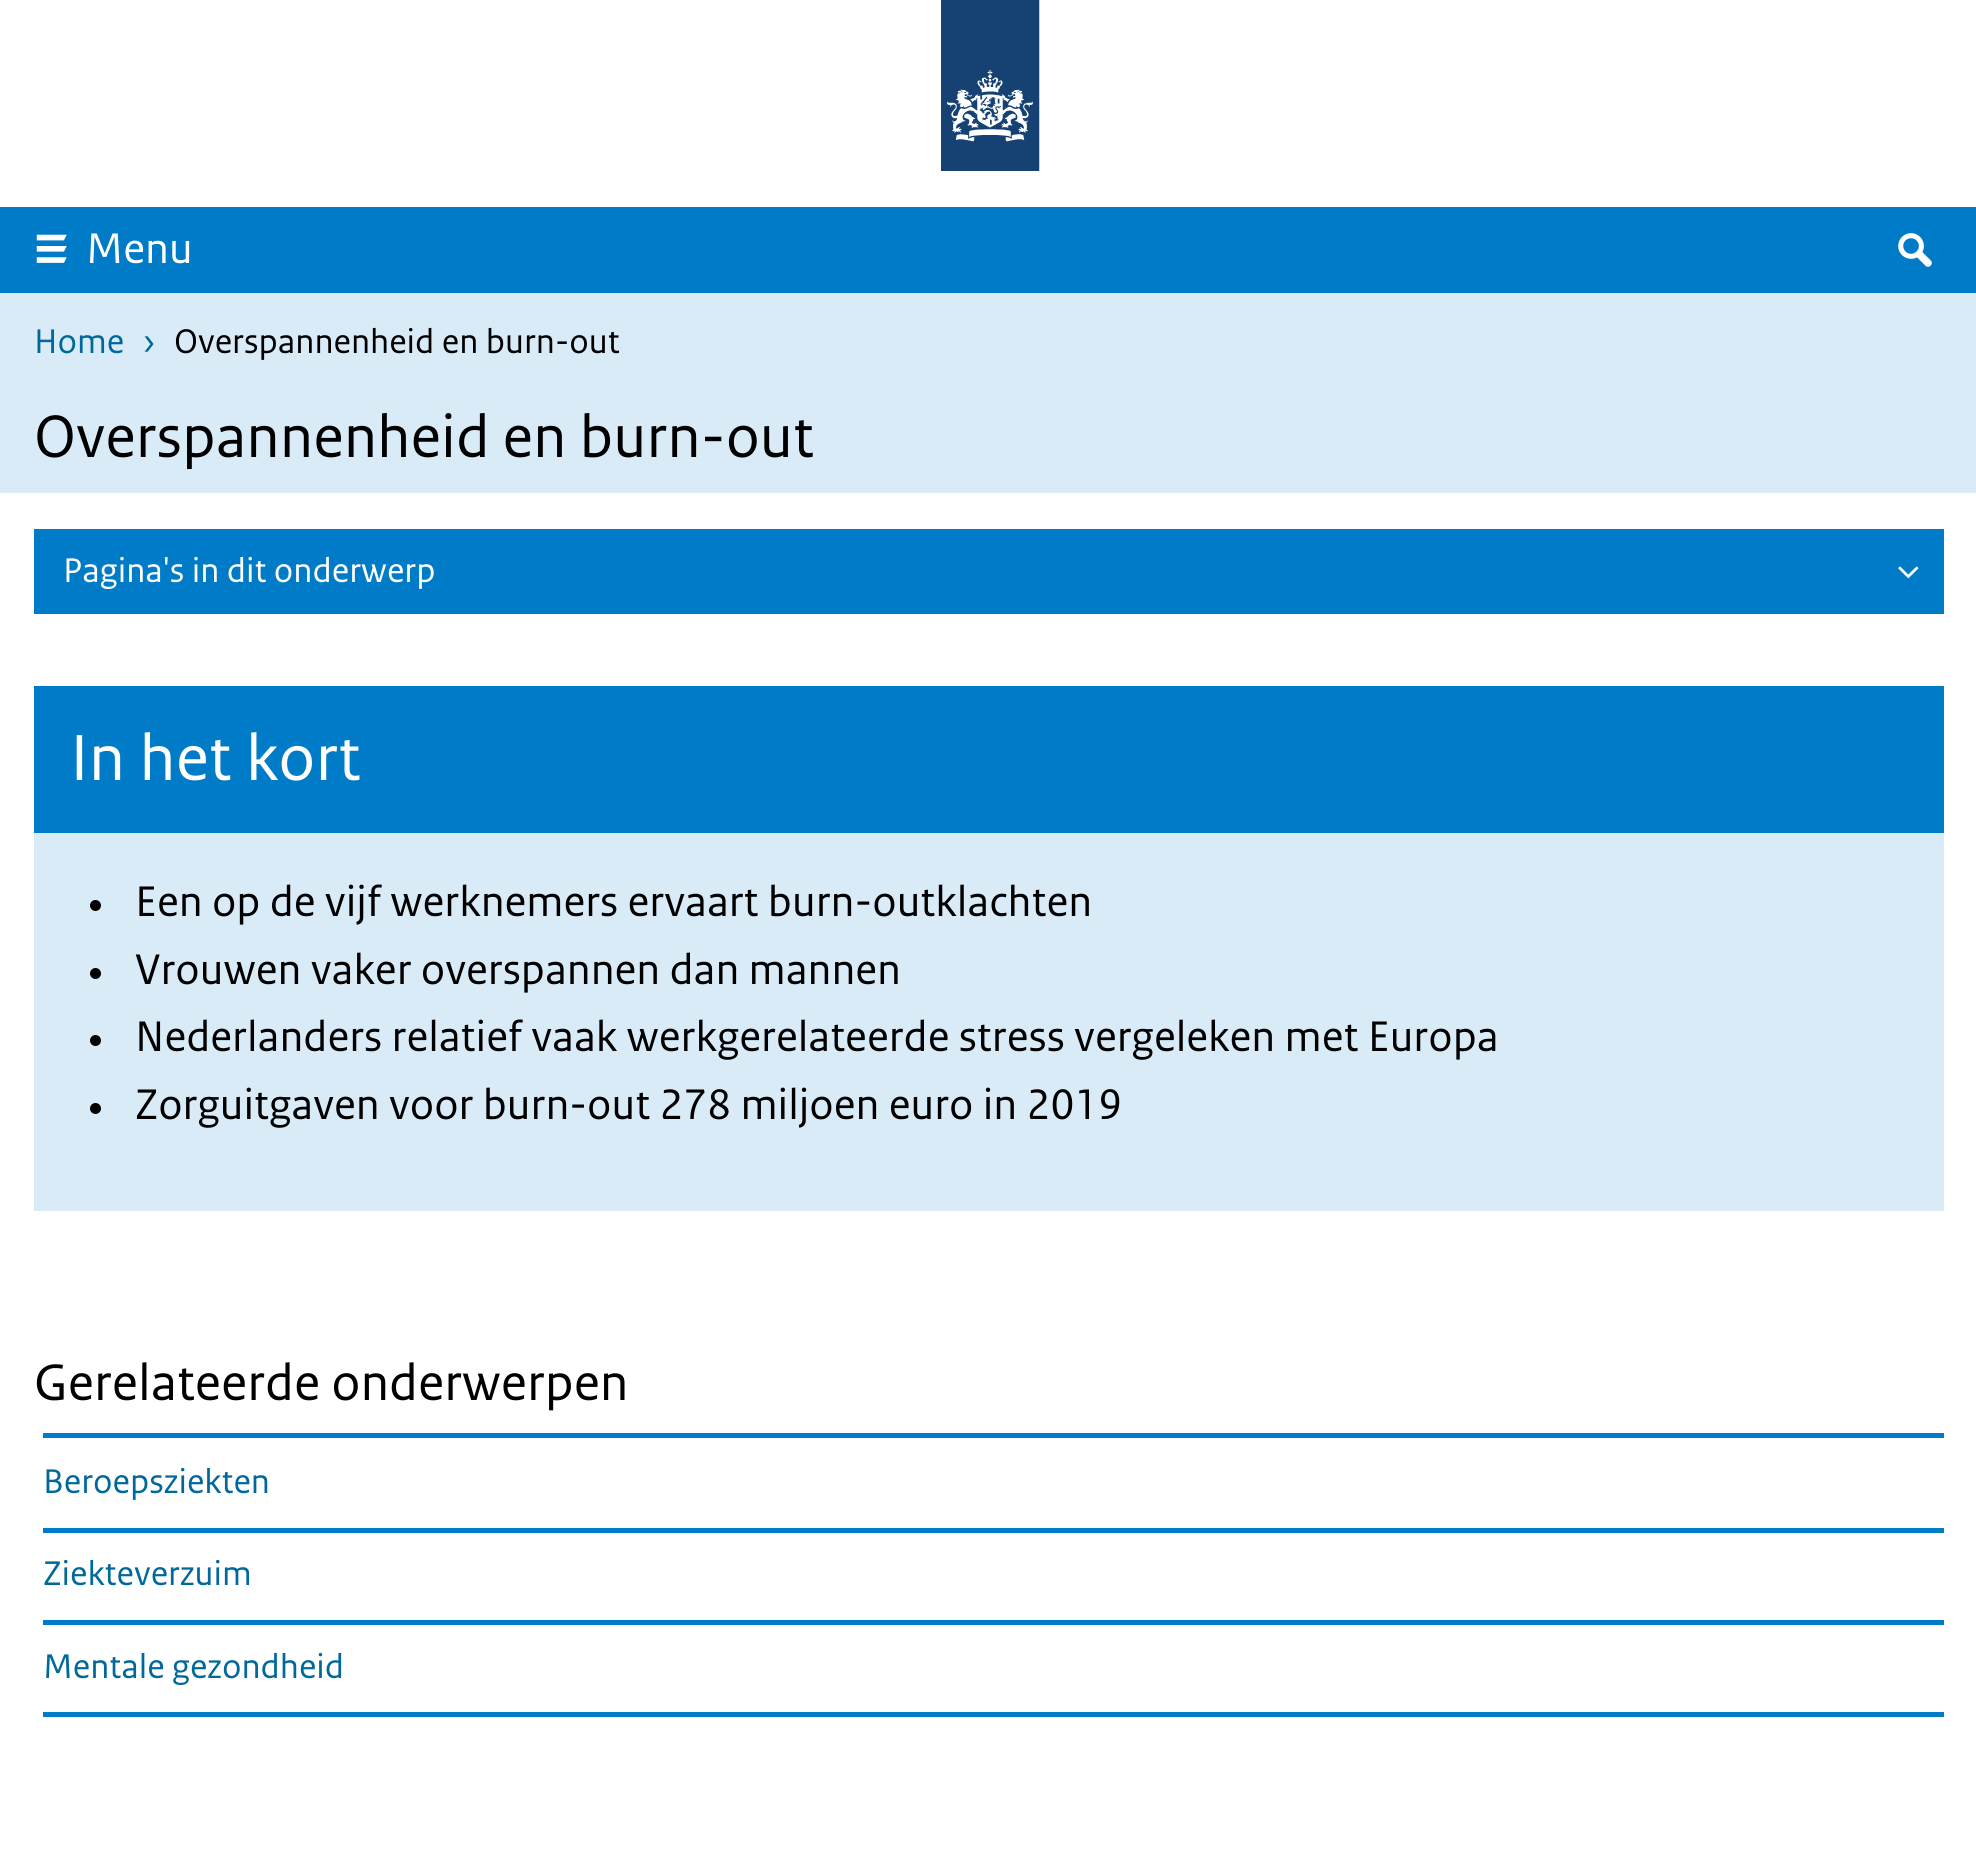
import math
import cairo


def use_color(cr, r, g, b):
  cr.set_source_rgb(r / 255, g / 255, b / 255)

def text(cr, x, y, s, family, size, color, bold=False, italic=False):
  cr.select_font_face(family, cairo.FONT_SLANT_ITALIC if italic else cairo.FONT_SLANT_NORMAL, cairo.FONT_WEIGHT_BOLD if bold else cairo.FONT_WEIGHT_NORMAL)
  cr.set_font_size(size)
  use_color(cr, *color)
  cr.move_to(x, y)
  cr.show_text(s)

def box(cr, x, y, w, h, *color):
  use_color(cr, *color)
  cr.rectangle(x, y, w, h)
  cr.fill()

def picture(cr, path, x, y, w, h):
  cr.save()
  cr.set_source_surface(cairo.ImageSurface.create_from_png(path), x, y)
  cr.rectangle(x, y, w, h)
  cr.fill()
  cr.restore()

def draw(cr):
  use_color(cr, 255, 255, 255)
  cr.paint()
  picture(cr, "img_01.png", 941, 0, 99, 171)
  box(cr, 0, 207, 1976, 86, 0, 123, 199)
  picture(cr, "img_02.png", 36, 234, 31, 29)
  picture(cr, "img_03.png", 1898, 233, 34, 34)
  box(cr, 0, 293, 1976, 200, 217, 235, 247)
  box(cr, 34, 529, 1910, 85, 0, 123, 199)
  picture(cr, "img_04.png", 1898, 566, 21, 13)
  box(cr, 34, 833, 1910, 378, 217, 235, 247)
  box(cr, 34, 686, 1910, 147, 0, 123, 199)
  use_color(cr, 0, 0, 0)
  cr.arc(95.5, 905.5, 5.5, 0, 2 * math.pi)
  cr.fill()
  cr.arc(95.5, 973.5, 5.5, 0, 2 * math.pi)
  cr.fill()
  cr.arc(95.5, 1040.5, 5.5, 0, 2 * math.pi)
  cr.fill()
  cr.arc(95.5, 1108.5, 5.5, 0, 2 * math.pi)
  cr.fill()
  box(cr, 43, 1433, 1901, 5, 0, 123, 199)
  box(cr, 43, 1528, 1901, 5, 0, 123, 199)
  box(cr, 43, 1620, 1901, 5, 0, 123, 199)
  box(cr, 43, 1712, 1901, 5, 0, 123, 199)
  text(cr, 86, 263, "Menu", "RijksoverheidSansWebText", 45, (255, 255, 255))
  text(cr, 34, 353, "Home", "RijksoverheidSansWebText", 36, (1, 104, 155))
  text(cr, 142, 353, "›", "RijksoverheidSansWebText", 36, (1, 104, 155))
  text(cr, 174, 353, "Overspannenheid en burn-out", "RijksoverheidSansWebText", 36, (0, 0, 0))
  text(cr, 34, 457, "Overspannenheid en burn-out", "RijksoverheidSansWebText", 63, (0, 0, 0))
  text(cr, 63, 582, "Pagina's in dit onderwerp", "RijksoverheidSansWebText", 36, (255, 255, 255))
  text(cr, 70, 780, "In het kort", "RijksoverheidSansWebText", 68.5, (255, 255, 255))
  text(cr, 135, 916, "Een op de vijf werknemers ervaart burn-outklachten", "RijksoverheidSansWebText", 45, (0, 0, 0))
  text(cr, 135, 984, "Vrouwen vaker overspannen dan mannen", "RijksoverheidSansWebText", 45, (0, 0, 0))
  text(cr, 135, 1051, "Nederlanders relatief vaak werkgerelateerde stress vergeleken met Europa", "RijksoverheidSansWebText", 45, (0, 0, 0))
  text(cr, 135, 1119, "Zorguitgaven voor burn-out 278 miljoen euro in 2019", "RijksoverheidSansWebText", 45, (0, 0, 0))
  text(cr, 34, 1400, "Gerelateerde onderwerpen", "RijksoverheidSansWebText", 54, (0, 0, 0))
  text(cr, 43, 1493, "Beroepsziekten", "RijksoverheidSansWebText", 36, (1, 104, 155))
  text(cr, 43, 1585, "Ziekteverzuim", "RijksoverheidSansWebText", 36, (1, 104, 155))
  text(cr, 43, 1678, "Mentale gezondheid", "RijksoverheidSansWebText", 36, (1, 104, 155))


surface = cairo.ImageSurface(cairo.FORMAT_RGB24, 1976, 1849)
cr = cairo.Context(surface)
options = cairo.FontOptions()
options.set_hint_metrics(cairo.HINT_METRICS_OFF)
options.set_hint_style(cairo.HINT_STYLE_NONE)
cr.set_font_options(options)
cr.set_miter_limit(4)
draw(cr)
surface.write_to_png("out.png")
